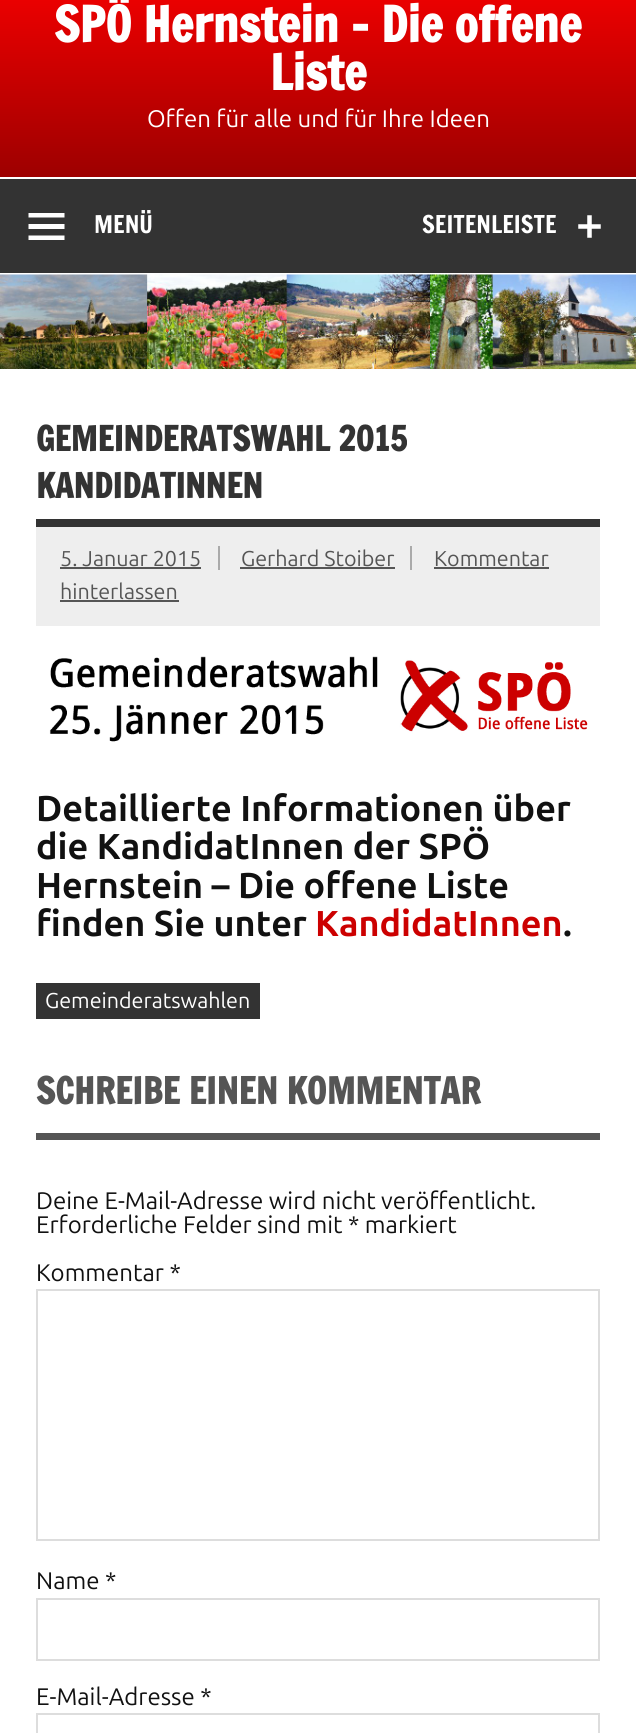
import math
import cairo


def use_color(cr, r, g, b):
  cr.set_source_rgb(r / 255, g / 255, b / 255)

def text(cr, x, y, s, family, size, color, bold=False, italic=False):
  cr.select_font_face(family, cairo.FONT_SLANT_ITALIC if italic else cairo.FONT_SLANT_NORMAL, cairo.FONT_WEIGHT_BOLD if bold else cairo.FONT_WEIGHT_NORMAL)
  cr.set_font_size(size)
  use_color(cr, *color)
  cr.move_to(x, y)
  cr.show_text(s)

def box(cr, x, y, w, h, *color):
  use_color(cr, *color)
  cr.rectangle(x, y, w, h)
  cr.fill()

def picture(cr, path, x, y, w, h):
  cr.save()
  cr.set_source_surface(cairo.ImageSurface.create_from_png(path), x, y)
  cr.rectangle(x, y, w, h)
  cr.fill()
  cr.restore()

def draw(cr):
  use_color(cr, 255, 255, 255)
  cr.paint()
  gradient = cairo.LinearGradient(318, -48, 318, 177)
  gradient.add_color_stop_rgba(0, 1, 0, 0, 1)
  gradient.add_color_stop_rgba(1, 0.616, 0, 0, 1)
  cr.set_source(gradient)
  cr.rectangle(0, 0, 636, 177)
  cr.fill()
  box(cr, 0, 179, 636, 94, 51, 51, 51)
  use_color(cr, 255, 255, 255)
  cr.new_path()
  cr.move_to(28.5, 240)
  cr.line_to(28.5, 235.5)
  cr.line_to(64.5, 235.5)
  cr.line_to(64.5, 240)
  cr.close_path()
  cr.move_to(28.5, 213)
  cr.line_to(64.5, 213)
  cr.line_to(64.5, 217.5)
  cr.line_to(28.5, 217.5)
  cr.close_path()
  cr.move_to(28.5, 229)
  cr.line_to(28.5, 224)
  cr.line_to(64.5, 224)
  cr.line_to(64.5, 229)
  cr.close_path()
  cr.fill()
  picture(cr, "img_01.png", 578, 215, 23, 23)
  picture(cr, "img_02.png", 0, 274, 636, 95)
  box(cr, 36, 519, 564, 8, 51, 51, 51)
  box(cr, 36, 527, 564, 99, 238, 238, 238)
  box(cr, 218, 546, 2, 24, 170, 170, 170)
  box(cr, 60, 567, 141, 2, 85, 85, 85)
  box(cr, 410, 546, 2, 24, 170, 170, 170)
  box(cr, 240, 567, 155, 2, 85, 85, 85)
  box(cr, 434, 567, 115, 2, 85, 85, 85)
  box(cr, 60, 600, 119, 2, 85, 85, 85)
  picture(cr, "img_03.png", 49, 656, 539, 86)
  box(cr, 36, 983, 224, 36, 51, 51, 51)
  box(cr, 36, 1133, 564, 7, 85, 85, 85)
  cr.rectangle(37, 1290, 562, 250)
  use_color(cr, 221, 221, 221)
  cr.stroke()
  cr.rectangle(37, 1599, 562, 61)
  cr.stroke()
  cr.rectangle(37, 1714, 562, 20)
  cr.stroke()
  text(cr, 54, 42, "SPÖ Hernstein – Die offene", "Francois One", 48, (255, 255, 255), bold=True)
  text(cr, 270, 90, "Liste", "Francois One", 48, (255, 255, 255), bold=True)
  text(cr, 147, 127, "Offen für alle und für Ihre Ideen", "Ubuntu", 24, (255, 255, 255))
  text(cr, 94, 233, "MENÜ", "Francois One", 24, (255, 255, 255))
  text(cr, 422, 233, "SEITENLEISTE", "Francois One", 24, (255, 255, 255))
  text(cr, 36, 451, "GEMEINDERATSWAHL 2015", "Francois One", 33.6, (51, 51, 51), bold=True)
  text(cr, 36, 498, "KANDIDATINNEN", "Francois One", 33.6, (51, 51, 51), bold=True)
  text(cr, 60, 566, "5. Januar 2015", "Ubuntu", 21.5, (85, 85, 85))
  text(cr, 241, 566, "Gerhard Stoiber", "Ubuntu", 21.5, (85, 85, 85))
  text(cr, 434, 566, "Kommentar", "Ubuntu", 21.5, (85, 85, 85))
  text(cr, 60, 599, "hinterlassen", "Ubuntu", 21.5, (85, 85, 85))
  text(cr, 36, 821, "Detaillierte Informationen über", "Ubuntu", 36, (17, 17, 17), bold=True)
  text(cr, 36, 859, "die KandidatInnen der SPÖ", "Ubuntu", 36, (17, 17, 17), bold=True)
  text(cr, 36, 898, "Hernstein – Die offene Liste", "Ubuntu", 36, (17, 17, 17), bold=True)
  text(cr, 36, 936, "finden Sie unter", "Ubuntu", 36, (17, 17, 17), bold=True)
  text(cr, 315, 936, "KandidatInnen", "Ubuntu", 36, (204, 0, 0), bold=True)
  text(cr, 563, 936, ".", "Ubuntu", 36, (17, 17, 17), bold=True)
  text(cr, 45, 1008, "Gemeinderatswahlen", "Ubuntu", 21.5, (255, 255, 255))
  text(cr, 36, 1104, "SCHREIBE EINEN KOMMENTAR", "Francois One", 36, (85, 85, 85), bold=True)
  text(cr, 36, 1209, "Deine E-Mail-Adresse wird nicht veröffentlicht.", "Ubuntu", 24, (17, 17, 17))
  text(cr, 36, 1233, "Erforderliche Felder sind mit * markiert", "Ubuntu", 24, (17, 17, 17))
  text(cr, 36, 1281, "Kommentar *", "Ubuntu", 24, (17, 17, 17))
  text(cr, 36, 1589, "Name *", "Ubuntu", 24, (17, 17, 17))
  text(cr, 36, 1705, "E-Mail-Adresse *", "Ubuntu", 24, (17, 17, 17))


surface = cairo.ImageSurface(cairo.FORMAT_RGB24, 636, 1733)
cr = cairo.Context(surface)
options = cairo.FontOptions()
options.set_hint_metrics(cairo.HINT_METRICS_OFF)
options.set_hint_style(cairo.HINT_STYLE_NONE)
cr.set_font_options(options)
cr.set_miter_limit(4)
draw(cr)
surface.write_to_png("out.png")
